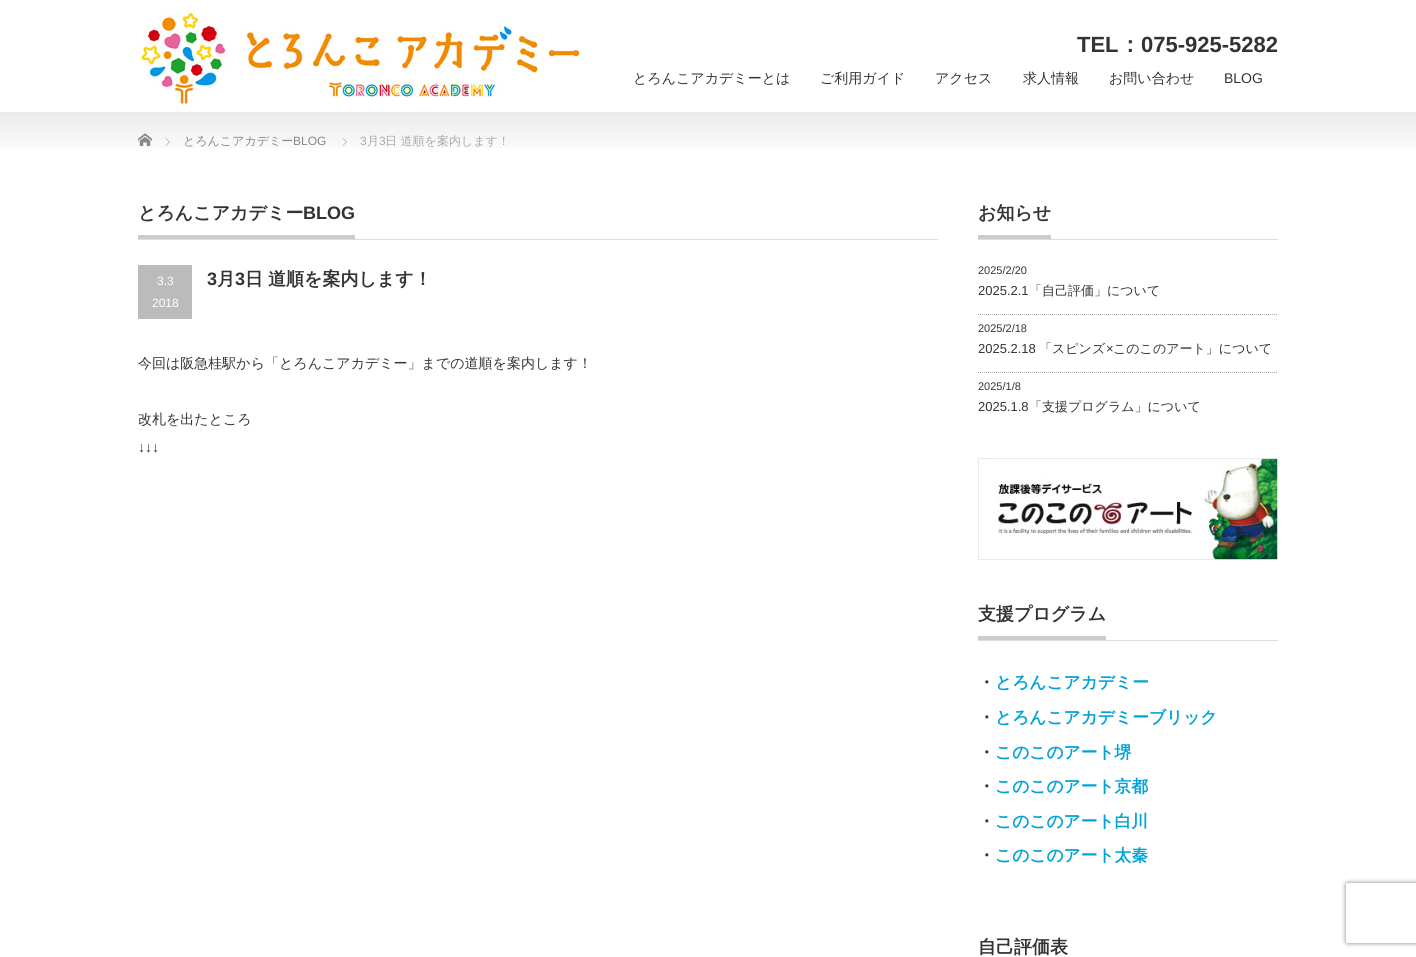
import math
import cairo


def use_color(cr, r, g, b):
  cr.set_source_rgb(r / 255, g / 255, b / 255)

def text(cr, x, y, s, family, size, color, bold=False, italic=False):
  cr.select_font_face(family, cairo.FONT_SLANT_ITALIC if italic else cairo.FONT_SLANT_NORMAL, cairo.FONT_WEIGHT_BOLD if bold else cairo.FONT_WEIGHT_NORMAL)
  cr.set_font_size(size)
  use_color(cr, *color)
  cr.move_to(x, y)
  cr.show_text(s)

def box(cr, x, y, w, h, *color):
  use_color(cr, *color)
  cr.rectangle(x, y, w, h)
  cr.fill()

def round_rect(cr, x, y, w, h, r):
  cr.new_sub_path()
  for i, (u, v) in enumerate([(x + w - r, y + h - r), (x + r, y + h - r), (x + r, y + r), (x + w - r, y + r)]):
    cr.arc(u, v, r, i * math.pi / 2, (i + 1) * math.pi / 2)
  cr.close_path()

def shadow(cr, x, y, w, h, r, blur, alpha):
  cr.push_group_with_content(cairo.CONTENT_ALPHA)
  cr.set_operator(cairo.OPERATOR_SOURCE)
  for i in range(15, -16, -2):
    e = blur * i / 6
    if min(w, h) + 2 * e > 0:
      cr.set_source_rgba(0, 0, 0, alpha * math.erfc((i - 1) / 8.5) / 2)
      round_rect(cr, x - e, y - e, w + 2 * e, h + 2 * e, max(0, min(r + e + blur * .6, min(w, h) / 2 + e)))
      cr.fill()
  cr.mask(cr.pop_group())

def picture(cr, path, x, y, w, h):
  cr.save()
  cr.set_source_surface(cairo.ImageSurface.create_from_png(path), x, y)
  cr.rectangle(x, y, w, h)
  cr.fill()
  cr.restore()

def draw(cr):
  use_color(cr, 255, 255, 255)
  cr.paint()
  picture(cr, "img_01.png", 138, 10, 448, 96)
  picture(cr, "img_02.png", 0, 112, 1416, 36)
  picture(cr, "img_03.png", 138, 133, 14, 13)
  picture(cr, "img_04.png", 165, 138, 5, 8)
  picture(cr, "img_04.png", 342, 138, 5, 8)
  box(cr, 138, 239, 800, 1, 221, 221, 221)
  box(cr, 138, 235, 217, 4, 204, 204, 204)
  box(cr, 138, 265, 54, 54, 187, 187, 187)
  box(cr, 978, 239, 300, 1, 221, 221, 221)
  box(cr, 978, 235, 73, 4, 204, 204, 204)
  cr.new_path()
  cr.move_to(978, 314.5)
  cr.line_to(1278, 314.5)
  use_color(cr, 170, 170, 170)
  cr.set_line_width(1)
  cr.set_dash([1, 1])
  cr.stroke()
  cr.new_path()
  cr.move_to(978, 372.5)
  cr.line_to(1278, 372.5)
  cr.stroke()
  picture(cr, "img_05.png", 978, 458, 300, 102)
  box(cr, 978, 640, 300, 1, 221, 221, 221)
  box(cr, 978, 636, 128, 4, 204, 204, 204)
  cr.save()
  cr.set_fill_rule(cairo.FILL_RULE_EVEN_ODD)
  cr.new_path()
  cr.move_to(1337, 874)
  cr.line_to(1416, 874)
  cr.line_to(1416, 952)
  cr.line_to(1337, 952)
  cr.close_path()
  cr.move_to(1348, 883)
  cr.line_to(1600, 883)
  cr.curve_to(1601, 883, 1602, 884, 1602, 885)
  cr.line_to(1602, 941)
  cr.curve_to(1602, 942, 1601, 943, 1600, 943)
  cr.line_to(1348, 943)
  cr.curve_to(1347, 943, 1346, 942, 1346, 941)
  cr.line_to(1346, 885)
  cr.curve_to(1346, 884, 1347, 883, 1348, 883)
  cr.close_path()
  cr.clip()
  use_color(cr, 128, 128, 128)
  shadow(cr, 1346, 883, 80, 60, 2, 2.5, 1)
  cr.restore()
  text(cr, 1077, 52, "TEL", "Liberation Sans", 22, (51, 51, 51), bold=True)
  text(cr, 1119, 52, "：", "WenQuanYi Zen Hei", 22, (51, 51, 51), bold=True)
  text(cr, 1141, 52, "075-925-5282", "Liberation Sans", 22, (51, 51, 51), bold=True)
  text(cr, 633, 83, "とろんこアカデミーとは", "WenQuanYi Zen Hei Medium", 14, (51, 51, 51))
  text(cr, 820, 83, "ご利用ガイド", "WenQuanYi Zen Hei Medium", 14, (51, 51, 51))
  text(cr, 935, 83, "アクセス", "WenQuanYi Zen Hei Medium", 14, (51, 51, 51))
  text(cr, 1023, 83, "求人情報", "WenQuanYi Zen Hei Medium", 14, (51, 51, 51))
  text(cr, 1109, 83, "お問い合わせ", "WenQuanYi Zen Hei Medium", 14, (51, 51, 51))
  text(cr, 1224, 83, "BLOG", "Liberation Sans", 14, (51, 51, 51))
  text(cr, 183, 145, "とろんこアカデミー", "WenQuanYi Zen Hei Medium", 12, (136, 136, 136))
  text(cr, 293, 145, "BLOG", "Liberation Sans", 12, (136, 136, 136))
  text(cr, 360, 145, "3", "Liberation Sans", 12, (170, 170, 170))
  text(cr, 367, 145, "月", "WenQuanYi Zen Hei Medium", 12, (170, 170, 170))
  text(cr, 379, 145, "3", "Liberation Sans", 12, (170, 170, 170))
  text(cr, 385, 145, "日 道順を案内します！", "WenQuanYi Zen Hei Medium", 12, (170, 170, 170))
  text(cr, 138, 219, "とろんこアカデミー", "WenQuanYi Zen Hei", 18, (51, 51, 51), bold=True)
  text(cr, 303, 219, "BLOG", "Liberation Sans", 18, (51, 51, 51), bold=True)
  text(cr, 157, 285, "3.3", "Liberation Sans", 12, (255, 255, 255))
  text(cr, 152, 307, "2018", "Liberation Sans", 12, (255, 255, 255))
  text(cr, 207, 285, "3", "Liberation Sans", 18, (51, 51, 51), bold=True)
  text(cr, 217, 285, "月", "WenQuanYi Zen Hei", 18, (51, 51, 51), bold=True)
  text(cr, 235, 285, "3", "Liberation Sans", 18, (51, 51, 51), bold=True)
  text(cr, 245, 285, "日", "WenQuanYi Zen Hei", 18, (51, 51, 51), bold=True)
  text(cr, 268, 285, "道順を案内します！", "WenQuanYi Zen Hei", 18, (51, 51, 51), bold=True)
  text(cr, 138, 368, "今回は阪急桂駅から「とろんこアカデミー」までの道順を案内します！", "WenQuanYi Zen Hei Medium", 14, (51, 51, 51))
  text(cr, 138, 424, "改札を出たところ", "WenQuanYi Zen Hei Medium", 14, (51, 51, 51))
  text(cr, 138, 452, "↓↓↓", "Liberation Sans", 14, (51, 51, 51))
  text(cr, 978, 219, "お知らせ", "WenQuanYi Zen Hei", 18, (51, 51, 51), bold=True)
  text(cr, 978, 274, "2025/2/20", "Liberation Sans", 11, (51, 51, 51))
  text(cr, 978, 295, "2025.2.1", "Liberation Sans", 13, (51, 51, 51))
  text(cr, 1029, 295, "「自己評価」について", "WenQuanYi Zen Hei Medium", 13, (51, 51, 51))
  text(cr, 978, 332, "2025/2/18", "Liberation Sans", 11, (51, 51, 51))
  text(cr, 978, 353, "2025.2.18", "Liberation Sans", 13, (51, 51, 51))
  text(cr, 1039, 353, "「スピンズ", "WenQuanYi Zen Hei Medium", 13, (51, 51, 51))
  text(cr, 1106, 353, "×", "Liberation Sans", 13, (51, 51, 51))
  text(cr, 1113, 353, "このこのアート」について", "WenQuanYi Zen Hei Medium", 13, (51, 51, 51))
  text(cr, 978, 390, "2025/1/8", "Liberation Sans", 11, (51, 51, 51))
  text(cr, 978, 411, "2025.1.8", "Liberation Sans", 13, (51, 51, 51))
  text(cr, 1029, 411, "「支援プログラム」について", "WenQuanYi Zen Hei Medium", 13, (51, 51, 51))
  text(cr, 978, 620, "支援プログラム", "WenQuanYi Zen Hei", 18, (51, 51, 51), bold=True)
  text(cr, 978, 688, "・", "WenQuanYi Zen Hei", 16.75, (51, 51, 51), bold=True)
  text(cr, 995, 688, "とろんこアカデミー", "WenQuanYi Zen Hei", 16.75, (0, 162, 217), bold=True)
  text(cr, 978, 723, "・", "WenQuanYi Zen Hei", 16.75, (51, 51, 51), bold=True)
  text(cr, 995, 723, "とろんこアカデミーブリック", "WenQuanYi Zen Hei", 16.75, (0, 162, 217), bold=True)
  text(cr, 978, 758, "・", "WenQuanYi Zen Hei", 16.75, (51, 51, 51), bold=True)
  text(cr, 995, 758, "このこのアート堺", "WenQuanYi Zen Hei", 16.75, (0, 162, 217), bold=True)
  text(cr, 978, 792, "・", "WenQuanYi Zen Hei", 16.75, (51, 51, 51), bold=True)
  text(cr, 995, 792, "このこのアート京都", "WenQuanYi Zen Hei", 16.75, (0, 162, 217), bold=True)
  text(cr, 978, 827, "・", "WenQuanYi Zen Hei", 16.75, (51, 51, 51), bold=True)
  text(cr, 995, 827, "このこのアート白川", "WenQuanYi Zen Hei", 16.75, (0, 162, 217), bold=True)
  text(cr, 978, 861, "・", "WenQuanYi Zen Hei", 16.75, (51, 51, 51), bold=True)
  text(cr, 995, 861, "このこのアート太秦", "WenQuanYi Zen Hei", 16.75, (0, 162, 217), bold=True)
  text(cr, 978, 953, "自己評価表", "WenQuanYi Zen Hei", 18, (51, 51, 51), bold=True)


surface = cairo.ImageSurface(cairo.FORMAT_RGB24, 1416, 957)
cr = cairo.Context(surface)
options = cairo.FontOptions()
options.set_hint_metrics(cairo.HINT_METRICS_OFF)
options.set_hint_style(cairo.HINT_STYLE_NONE)
cr.set_font_options(options)
cr.set_miter_limit(4)
draw(cr)
surface.write_to_png("out.png")
